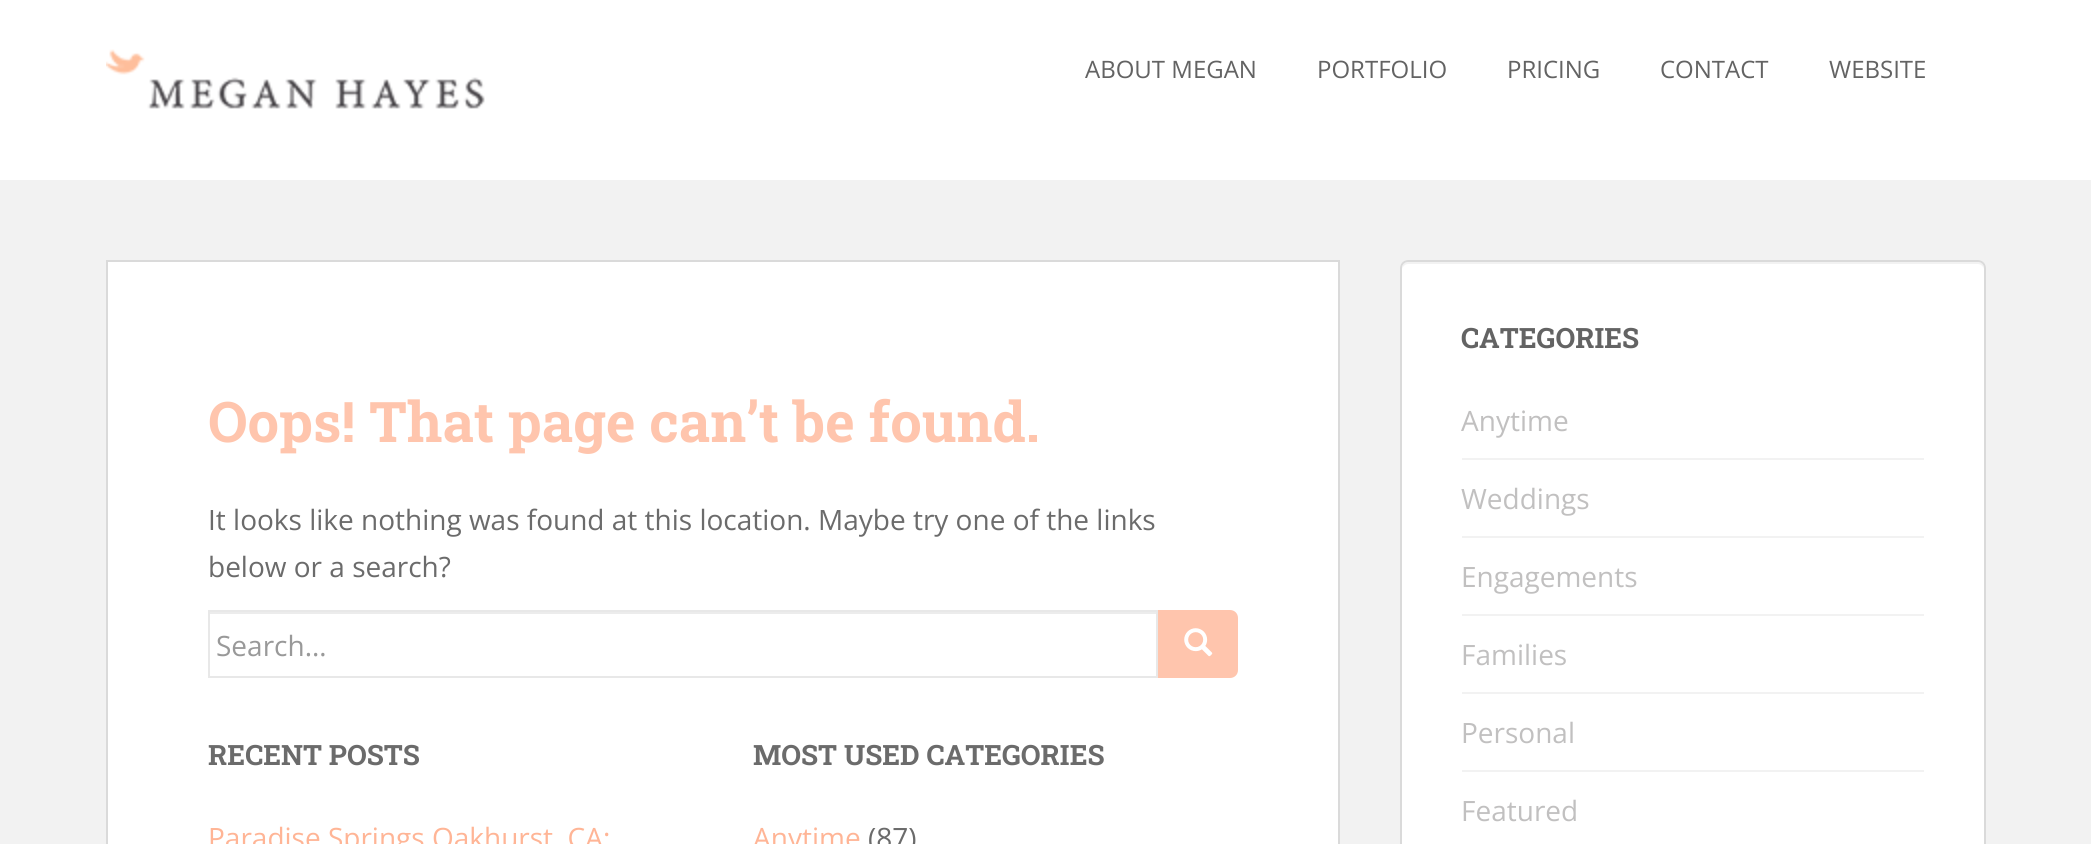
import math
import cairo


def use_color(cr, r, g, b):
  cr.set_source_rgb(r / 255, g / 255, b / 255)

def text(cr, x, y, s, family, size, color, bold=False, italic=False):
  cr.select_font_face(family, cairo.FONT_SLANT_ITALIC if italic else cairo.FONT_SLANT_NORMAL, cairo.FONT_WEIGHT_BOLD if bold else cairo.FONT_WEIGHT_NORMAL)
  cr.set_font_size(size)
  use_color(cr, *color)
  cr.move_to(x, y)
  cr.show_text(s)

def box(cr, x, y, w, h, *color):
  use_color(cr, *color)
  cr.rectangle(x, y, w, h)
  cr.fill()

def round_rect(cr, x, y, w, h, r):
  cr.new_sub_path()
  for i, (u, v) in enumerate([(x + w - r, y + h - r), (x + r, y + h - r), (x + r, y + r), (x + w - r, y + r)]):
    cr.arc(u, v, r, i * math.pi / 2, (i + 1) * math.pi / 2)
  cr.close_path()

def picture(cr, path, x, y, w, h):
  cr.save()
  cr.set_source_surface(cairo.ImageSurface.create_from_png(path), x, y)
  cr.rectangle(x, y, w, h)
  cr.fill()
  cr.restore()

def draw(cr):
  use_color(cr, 242, 242, 242)
  cr.paint()
  box(cr, 0, 0, 2091, 180, 255, 255, 255)
  picture(cr, "img_01.png", 106, 49, 379, 60)
  cr.rectangle(107, 261, 1232, 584)
  cr.fill_preserve()
  use_color(cr, 218, 218, 218)
  cr.stroke()
  box(cr, 210, 612, 946, 2, 236, 236, 236)
  cr.rectangle(209, 611, 948, 66)
  use_color(cr, 232, 232, 232)
  cr.stroke()
  use_color(cr, 255, 197, 173)
  cr.new_path()
  cr.move_to(1159, 611)
  cr.line_to(1230, 611)
  cr.curve_to(1234, 611, 1237, 614, 1237, 618)
  cr.line_to(1237, 670)
  cr.curve_to(1237, 674, 1234, 677, 1230, 677)
  cr.line_to(1159, 677)
  cr.close_path()
  cr.fill_preserve()
  cr.stroke()
  picture(cr, "img_02.png", 1184, 628, 29, 29)
  use_color(cr, 255, 255, 255)
  round_rect(cr, 1400, 260, 586, 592, 8)
  cr.fill()
  use_color(cr, 242, 242, 242)
  cr.new_path()
  cr.move_to(1408, 264)
  cr.line_to(1978, 264)
  cr.curve_to(1981, 264, 1984, 267, 1984, 270)
  cr.curve_to(1984, 266, 1983, 262, 1978, 262)
  cr.line_to(1408, 262)
  cr.curve_to(1403, 262, 1402, 266, 1402, 270)
  cr.curve_to(1402, 267, 1405, 264, 1408, 264)
  cr.close_path()
  cr.fill()
  round_rect(cr, 1401, 261, 584, 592, 7)
  use_color(cr, 218, 218, 218)
  cr.stroke()
  box(cr, 1462, 458, 462, 2, 242, 242, 242)
  box(cr, 1462, 536, 462, 2, 242, 242, 242)
  box(cr, 1462, 614, 462, 2, 242, 242, 242)
  box(cr, 1462, 692, 462, 2, 242, 242, 242)
  box(cr, 1462, 770, 462, 2, 242, 242, 242)
  text(cr, 1085, 78, "ABOUT MEGAN", "Open Sans", 24, (99, 99, 99))
  text(cr, 1317, 78, "PORTFOLIO", "Open Sans", 24, (99, 99, 99))
  text(cr, 1507, 78, "PRICING", "Open Sans", 24, (99, 99, 99))
  text(cr, 1660, 78, "CONTACT", "Open Sans", 24, (99, 99, 99))
  text(cr, 1829, 78, "WEBSITE", "Open Sans", 24, (99, 99, 99))
  text(cr, 208, 442, "Oops! That page can’t be found.", "Roboto Slab", 56, (255, 197, 173), bold=True)
  text(cr, 208, 530, "It looks like nothing was found at this location. Maybe try one of the links", "Open Sans", 28, (107, 107, 107))
  text(cr, 208, 577, "below or a search?", "Open Sans", 28, (107, 107, 107))
  text(cr, 216, 656, "Search…", "Open Sans", 28, (153, 153, 153))
  text(cr, 208, 765, "RECENT POSTS", "Roboto Slab", 28, (107, 107, 107), bold=True)
  text(cr, 208, 848, "Paradise Springs Oakhurst, CA:", "Open Sans", 28, (255, 181, 150))
  text(cr, 753, 765, "MOST USED CATEGORIES", "Roboto Slab", 28, (107, 107, 107), bold=True)
  text(cr, 753, 848, "Anytime", "Open Sans", 28, (255, 181, 150))
  text(cr, 868, 848, "(87)", "Open Sans", 28, (107, 107, 107))
  text(cr, 1461, 348, "CATEGORIES", "Roboto Slab", 28, (99, 99, 99), bold=True)
  text(cr, 1461, 431, "Anytime", "Open Sans", 28, (193, 192, 192))
  text(cr, 1461, 509, "Weddings", "Open Sans", 28, (193, 192, 192))
  text(cr, 1461, 587, "Engagements", "Open Sans", 28, (193, 192, 192))
  text(cr, 1461, 665, "Families", "Open Sans", 28, (193, 192, 192))
  text(cr, 1461, 743, "Personal", "Open Sans", 28, (193, 192, 192))
  text(cr, 1461, 821, "Featured", "Open Sans", 28, (193, 192, 192))


surface = cairo.ImageSurface(cairo.FORMAT_RGB24, 2091, 844)
cr = cairo.Context(surface)
options = cairo.FontOptions()
options.set_hint_metrics(cairo.HINT_METRICS_OFF)
options.set_hint_style(cairo.HINT_STYLE_NONE)
cr.set_font_options(options)
cr.set_miter_limit(4)
draw(cr)
surface.write_to_png("out.png")
